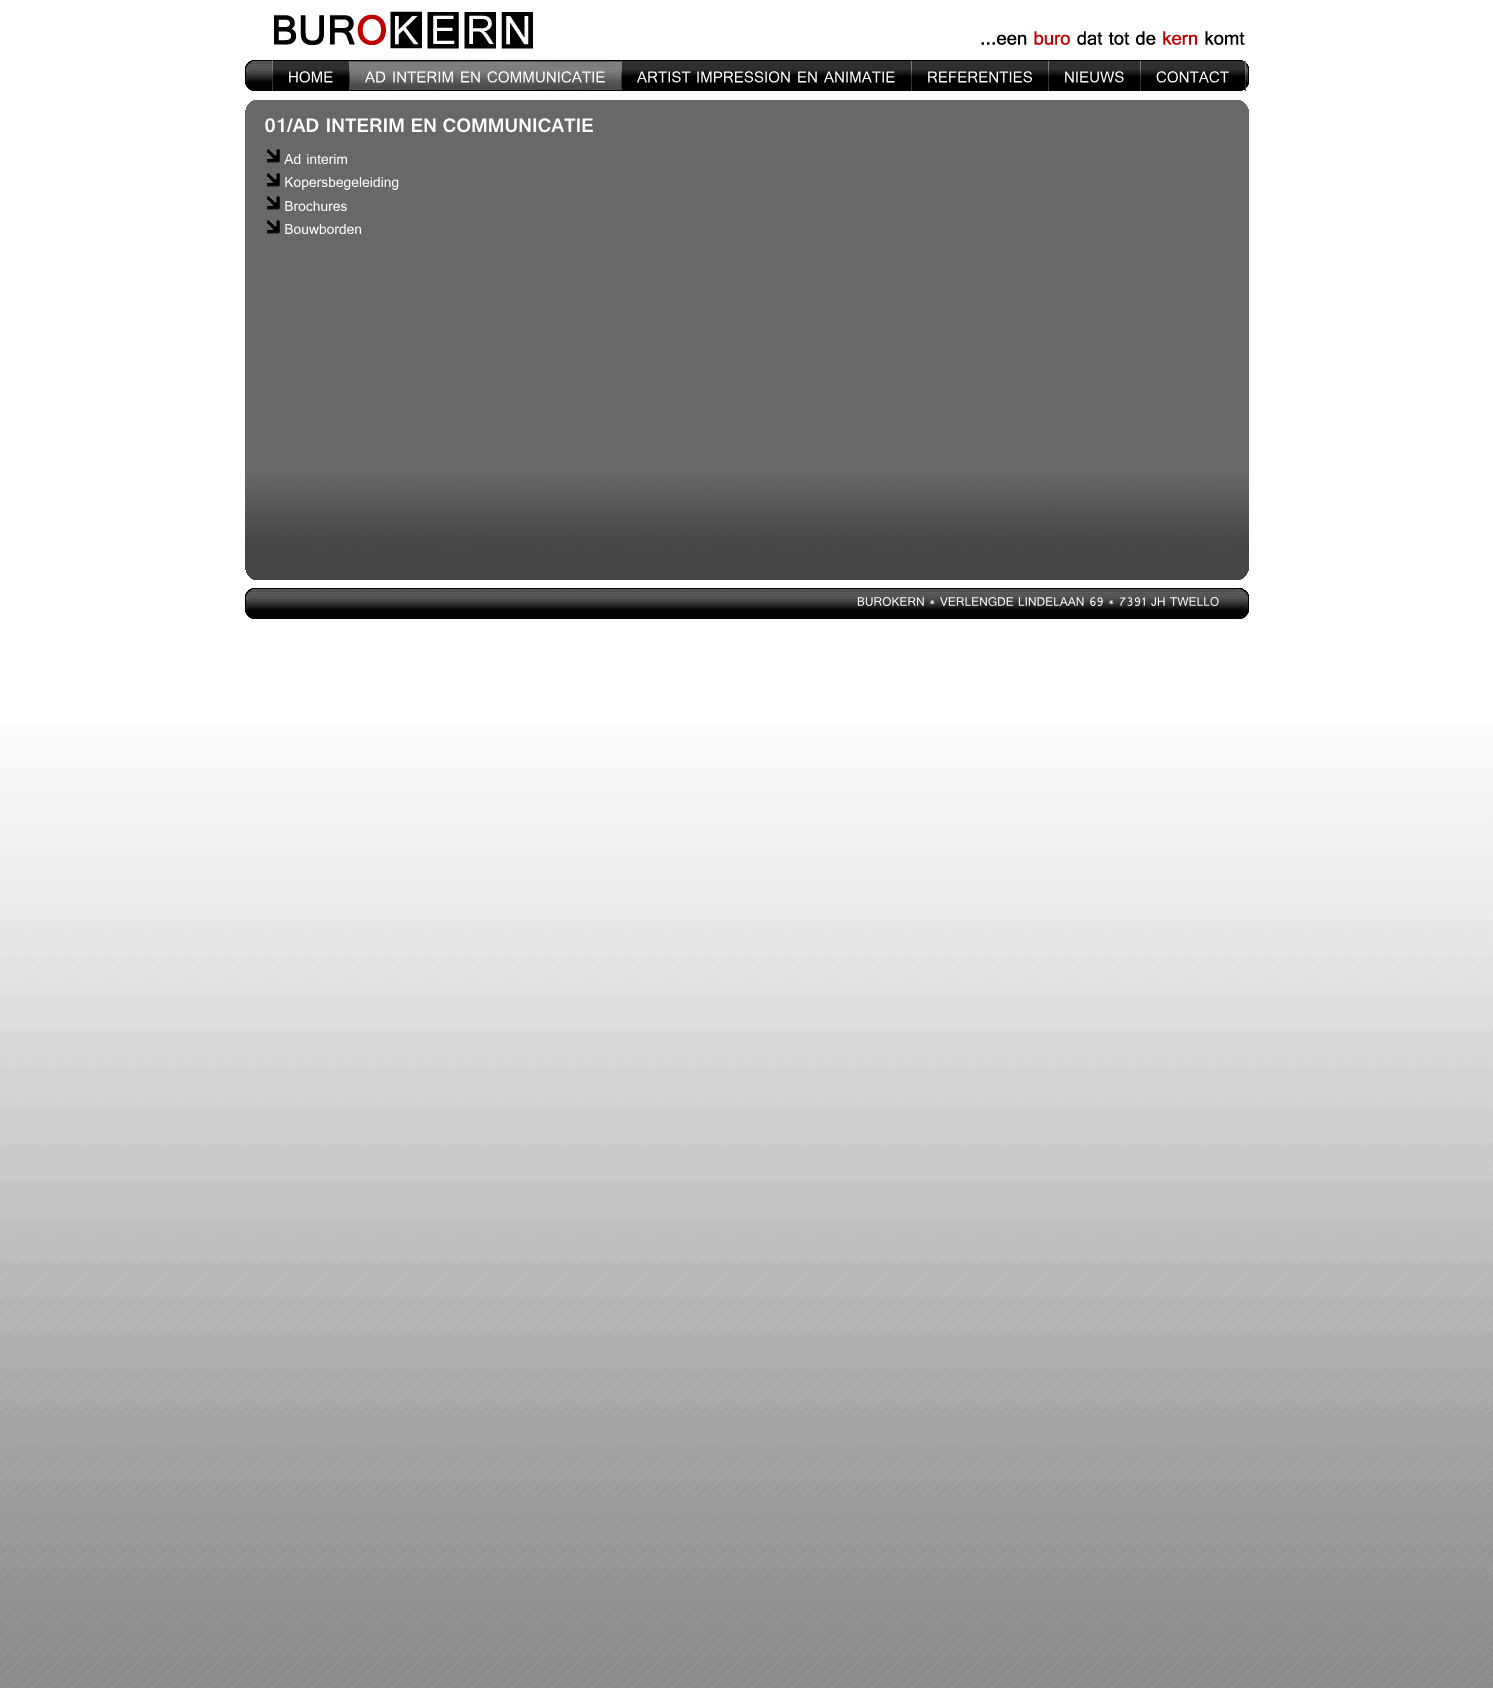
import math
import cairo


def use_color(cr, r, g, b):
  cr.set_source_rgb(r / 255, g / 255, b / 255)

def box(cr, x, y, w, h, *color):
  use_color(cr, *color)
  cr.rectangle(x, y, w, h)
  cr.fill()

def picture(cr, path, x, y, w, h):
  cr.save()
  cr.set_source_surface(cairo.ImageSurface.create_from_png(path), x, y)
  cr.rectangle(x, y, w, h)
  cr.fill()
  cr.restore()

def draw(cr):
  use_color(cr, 255, 255, 255)
  cr.paint()
  picture(cr, "img_01.png", 0, 725, 1493, 963)
  picture(cr, "img_02.png", 274, 11, 259, 38)
  picture(cr, "img_03.png", 981, 31, 264, 14)
  picture(cr, "img_04.png", 245, 60, 1004, 31)
  picture(cr, "img_05.png", 272, 60, 1, 31)
  picture(cr, "img_06.png", 349, 61, 1, 30)
  picture(cr, "img_07.png", 273, 61, 76, 22)
  picture(cr, "img_08.png", 289, 71, 44, 12)
  picture(cr, "img_06.png", 621, 61, 1, 30)
  picture(cr, "img_09.png", 350, 61, 271, 29)
  picture(cr, "img_10.png", 365, 71, 21, 12)
  picture(cr, "img_11.png", 393, 71, 60, 12)
  picture(cr, "img_12.png", 461, 71, 19, 12)
  picture(cr, "img_13.png", 487, 71, 118, 12)
  picture(cr, "img_06.png", 911, 61, 1, 30)
  picture(cr, "img_14.png", 622, 61, 289, 22)
  picture(cr, "img_15.png", 637, 71, 54, 12)
  picture(cr, "img_16.png", 697, 71, 93, 12)
  picture(cr, "img_17.png", 798, 71, 19, 12)
  picture(cr, "img_18.png", 824, 71, 71, 12)
  picture(cr, "img_06.png", 1048, 61, 1, 30)
  picture(cr, "img_19.png", 912, 61, 136, 22)
  picture(cr, "img_20.png", 928, 71, 104, 12)
  picture(cr, "img_06.png", 1140, 61, 1, 30)
  picture(cr, "img_21.png", 1049, 61, 91, 22)
  picture(cr, "img_22.png", 1065, 71, 59, 12)
  picture(cr, "img_06.png", 1245, 61, 1, 30)
  picture(cr, "img_23.png", 1141, 61, 104, 29)
  picture(cr, "img_24.png", 1156, 71, 73, 12)
  picture(cr, "img_25.png", 245, 100, 1004, 12)
  box(cr, 245, 112, 1004, 365, 105, 103, 104)
  picture(cr, "img_26.png", 245, 477, 1004, 88)
  picture(cr, "img_27.png", 265, 118, 54, 15)
  picture(cr, "img_28.png", 327, 118, 77, 14)
  picture(cr, "img_29.png", 412, 118, 24, 14)
  picture(cr, "img_30.png", 443, 118, 150, 15)
  picture(cr, "img_31.png", 267, 149, 13, 14)
  picture(cr, "img_32.png", 284, 154, 17, 10)
  picture(cr, "img_33.png", 307, 154, 41, 10)
  picture(cr, "img_31.png", 267, 173, 13, 14)
  picture(cr, "img_34.png", 285, 177, 114, 13)
  picture(cr, "img_31.png", 267, 196, 13, 14)
  picture(cr, "img_35.png", 285, 201, 62, 10)
  picture(cr, "img_31.png", 267, 220, 13, 14)
  picture(cr, "img_36.png", 285, 224, 77, 10)
  picture(cr, "img_37.png", 245, 565, 1004, 15)
  picture(cr, "img_04.png", 245, 588, 1004, 31)
  picture(cr, "img_38.png", 857, 597, 67, 9)
  picture(cr, "img_39.png", 929, 599, 6, 6)
  picture(cr, "img_40.png", 940, 597, 74, 9)
  picture(cr, "img_41.png", 1018, 597, 66, 9)
  picture(cr, "img_42.png", 1090, 597, 13, 9)
  picture(cr, "img_39.png", 1108, 599, 6, 6)
  picture(cr, "img_43.png", 1120, 597, 25, 9)
  picture(cr, "img_44.png", 1151, 597, 14, 9)
  picture(cr, "img_45.png", 1170, 597, 49, 9)


surface = cairo.ImageSurface(cairo.FORMAT_RGB24, 1493, 1688)
cr = cairo.Context(surface)
options = cairo.FontOptions()
options.set_hint_metrics(cairo.HINT_METRICS_OFF)
options.set_hint_style(cairo.HINT_STYLE_NONE)
cr.set_font_options(options)
cr.set_miter_limit(4)
draw(cr)
surface.write_to_png("out.png")
